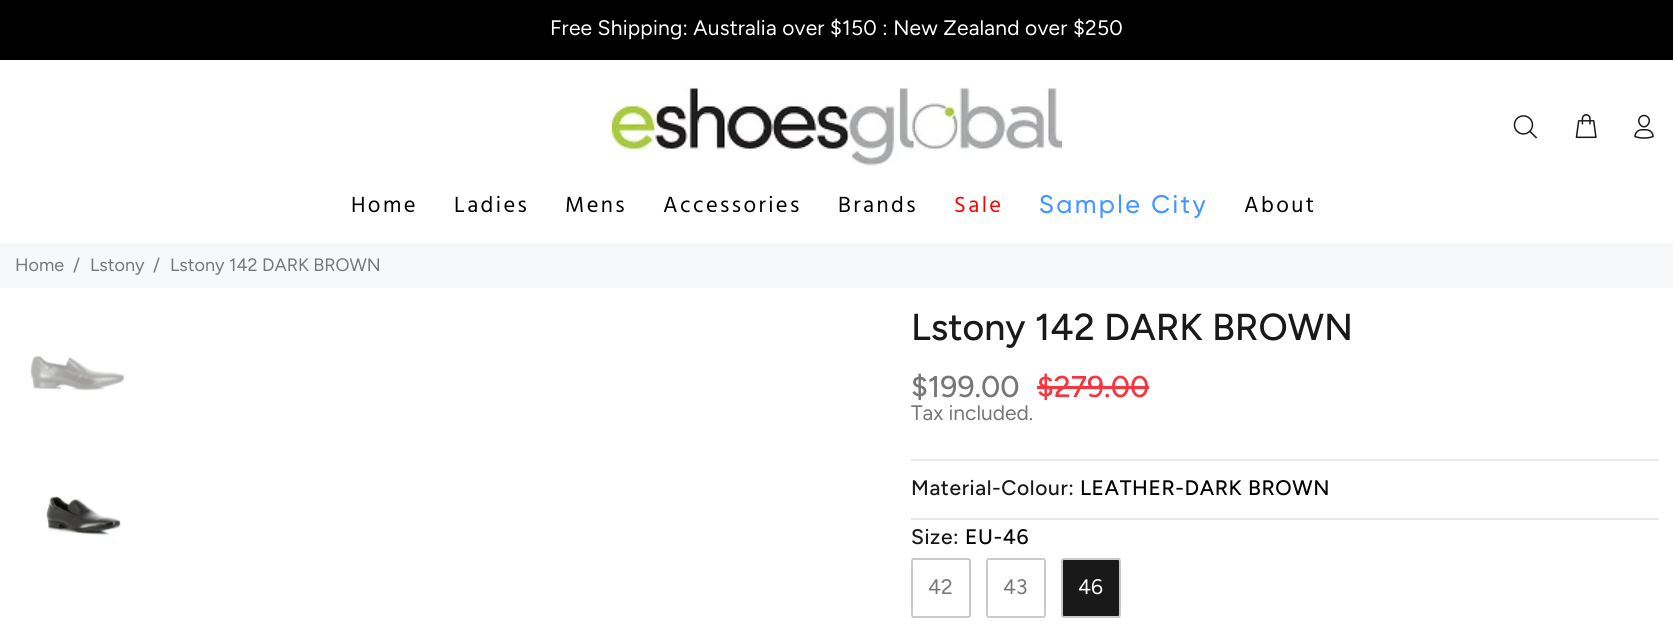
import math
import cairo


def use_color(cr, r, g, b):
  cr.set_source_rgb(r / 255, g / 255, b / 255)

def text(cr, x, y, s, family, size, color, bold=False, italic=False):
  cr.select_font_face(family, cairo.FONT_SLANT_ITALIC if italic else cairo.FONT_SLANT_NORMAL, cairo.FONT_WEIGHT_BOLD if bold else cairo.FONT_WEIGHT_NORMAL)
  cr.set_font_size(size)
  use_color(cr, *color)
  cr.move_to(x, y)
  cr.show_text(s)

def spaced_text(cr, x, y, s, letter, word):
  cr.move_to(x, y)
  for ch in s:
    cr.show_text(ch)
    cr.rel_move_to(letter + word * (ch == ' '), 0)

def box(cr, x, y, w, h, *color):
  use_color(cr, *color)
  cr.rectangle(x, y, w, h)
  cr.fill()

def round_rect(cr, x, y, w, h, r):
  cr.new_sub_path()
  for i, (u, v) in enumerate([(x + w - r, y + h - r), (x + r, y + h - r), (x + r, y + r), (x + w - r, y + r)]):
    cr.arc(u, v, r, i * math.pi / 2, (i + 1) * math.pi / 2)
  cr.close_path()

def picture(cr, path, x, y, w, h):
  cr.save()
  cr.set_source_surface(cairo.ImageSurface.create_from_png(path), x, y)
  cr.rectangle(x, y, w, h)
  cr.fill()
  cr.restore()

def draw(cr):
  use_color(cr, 255, 255, 255)
  cr.paint()
  box(cr, 0, 0, 1673, 60, 0, 0, 0)
  picture(cr, "img_01.png", 612, 86, 450, 80)
  picture(cr, "img_02.png", 1513, 115, 24, 24)
  picture(cr, "img_03.png", 1575, 114, 22, 25)
  picture(cr, "img_04.png", 1634, 114, 20, 25)
  box(cr, 0, 243, 1673, 45, 247, 248, 250)
  picture(cr, "img_05.png", 30, 355, 95, 46)
  picture(cr, "img_06.png", 46, 496, 75, 48)
  box(cr, 1037, 386, 112, 3, 248, 53, 62)
  box(cr, 911, 459, 748, 2, 233, 231, 231)
  box(cr, 911, 518, 748, 2, 233, 231, 231)
  round_rect(cr, 912, 559, 58, 58, 2)
  use_color(cr, 201, 201, 201)
  cr.stroke()
  round_rect(cr, 987, 559, 58, 58, 2)
  cr.stroke()
  use_color(cr, 25, 25, 25)
  round_rect(cr, 1062, 559, 58, 58, 2)
  cr.fill_preserve()
  use_color(cr, 201, 201, 201)
  cr.stroke()
  cr.select_font_face("Figtree")
  cr.set_font_size(21)
  use_color(cr, 255, 255, 255)
  spaced_text(cr, 550, 35, "Free Shipping: Australia over $150 : New Zealand over $250", 0.2, 0)
  cr.select_font_face("Hind")
  cr.set_font_size(22.5)
  use_color(cr, 0, 0, 0)
  spaced_text(cr, 351, 212, "Home", 2.4, 0)
  spaced_text(cr, 454, 212, "Ladies", 2.4, 0)
  spaced_text(cr, 565, 212, "Mens", 2.4, 0)
  spaced_text(cr, 663, 212, "Accessories", 2.4, 0)
  spaced_text(cr, 838, 212, "Brands", 2.4, 0)
  use_color(cr, 255, 0, 0)
  spaced_text(cr, 954, 212, "Sale", 2.4, 0)
  cr.select_font_face("Gilroy Medium")
  cr.set_font_size(25.5)
  use_color(cr, 70, 152, 255)
  spaced_text(cr, 1039, 213, "Sample City", 2.4, 0)
  cr.select_font_face("Hind")
  cr.set_font_size(22.5)
  use_color(cr, 0, 0, 0)
  spaced_text(cr, 1244, 212, "About", 2.4, 0)
  text(cr, 15, 271, "Home", "Figtree", 18, (119, 119, 119))
  text(cr, 73, 271, "/", "Figtree", 18, (119, 119, 119))
  text(cr, 90, 271, "Lstony", "Figtree", 18, (119, 119, 119))
  text(cr, 153, 271, "/", "Figtree", 18, (119, 119, 119))
  text(cr, 170, 271, "Lstony 142 DARK BROWN", "Figtree", 18, (119, 119, 119))
  text(cr, 911, 340, "Lstony 142 DARK BROWN", "Figtree Medium", 37.5, (25, 25, 25))
  text(cr, 911, 397, "$199.00", "Figtree Medium", 30, (119, 119, 119))
  text(cr, 1037, 397, "$279.00", "Figtree Medium", 30, (248, 53, 62))
  text(cr, 911, 420, "Tax included.", "Figtree", 21, (119, 119, 119))
  cr.select_font_face("Figtree Medium")
  use_color(cr, 25, 25, 25)
  spaced_text(cr, 911, 495, "Material-Colour:", 0.6, 0)
  use_color(cr, 0, 0, 0)
  spaced_text(cr, 1080, 495, "LEATHER-DARK BROWN", 0.6, 0)
  use_color(cr, 25, 25, 25)
  spaced_text(cr, 911, 544, "Size:", 0.6, 0)
  use_color(cr, 0, 0, 0)
  spaced_text(cr, 965, 544, "EU-46", 0.6, 0)
  text(cr, 928, 594, "42", "Figtree", 21, (119, 119, 119))
  text(cr, 1003, 594, "43", "Figtree", 21, (119, 119, 119))
  text(cr, 1078, 594, "46", "Figtree", 21, (255, 255, 255))


surface = cairo.ImageSurface(cairo.FORMAT_RGB24, 1673, 625)
cr = cairo.Context(surface)
options = cairo.FontOptions()
options.set_hint_metrics(cairo.HINT_METRICS_OFF)
options.set_hint_style(cairo.HINT_STYLE_NONE)
cr.set_font_options(options)
cr.set_miter_limit(4)
draw(cr)
surface.write_to_png("out.png")
